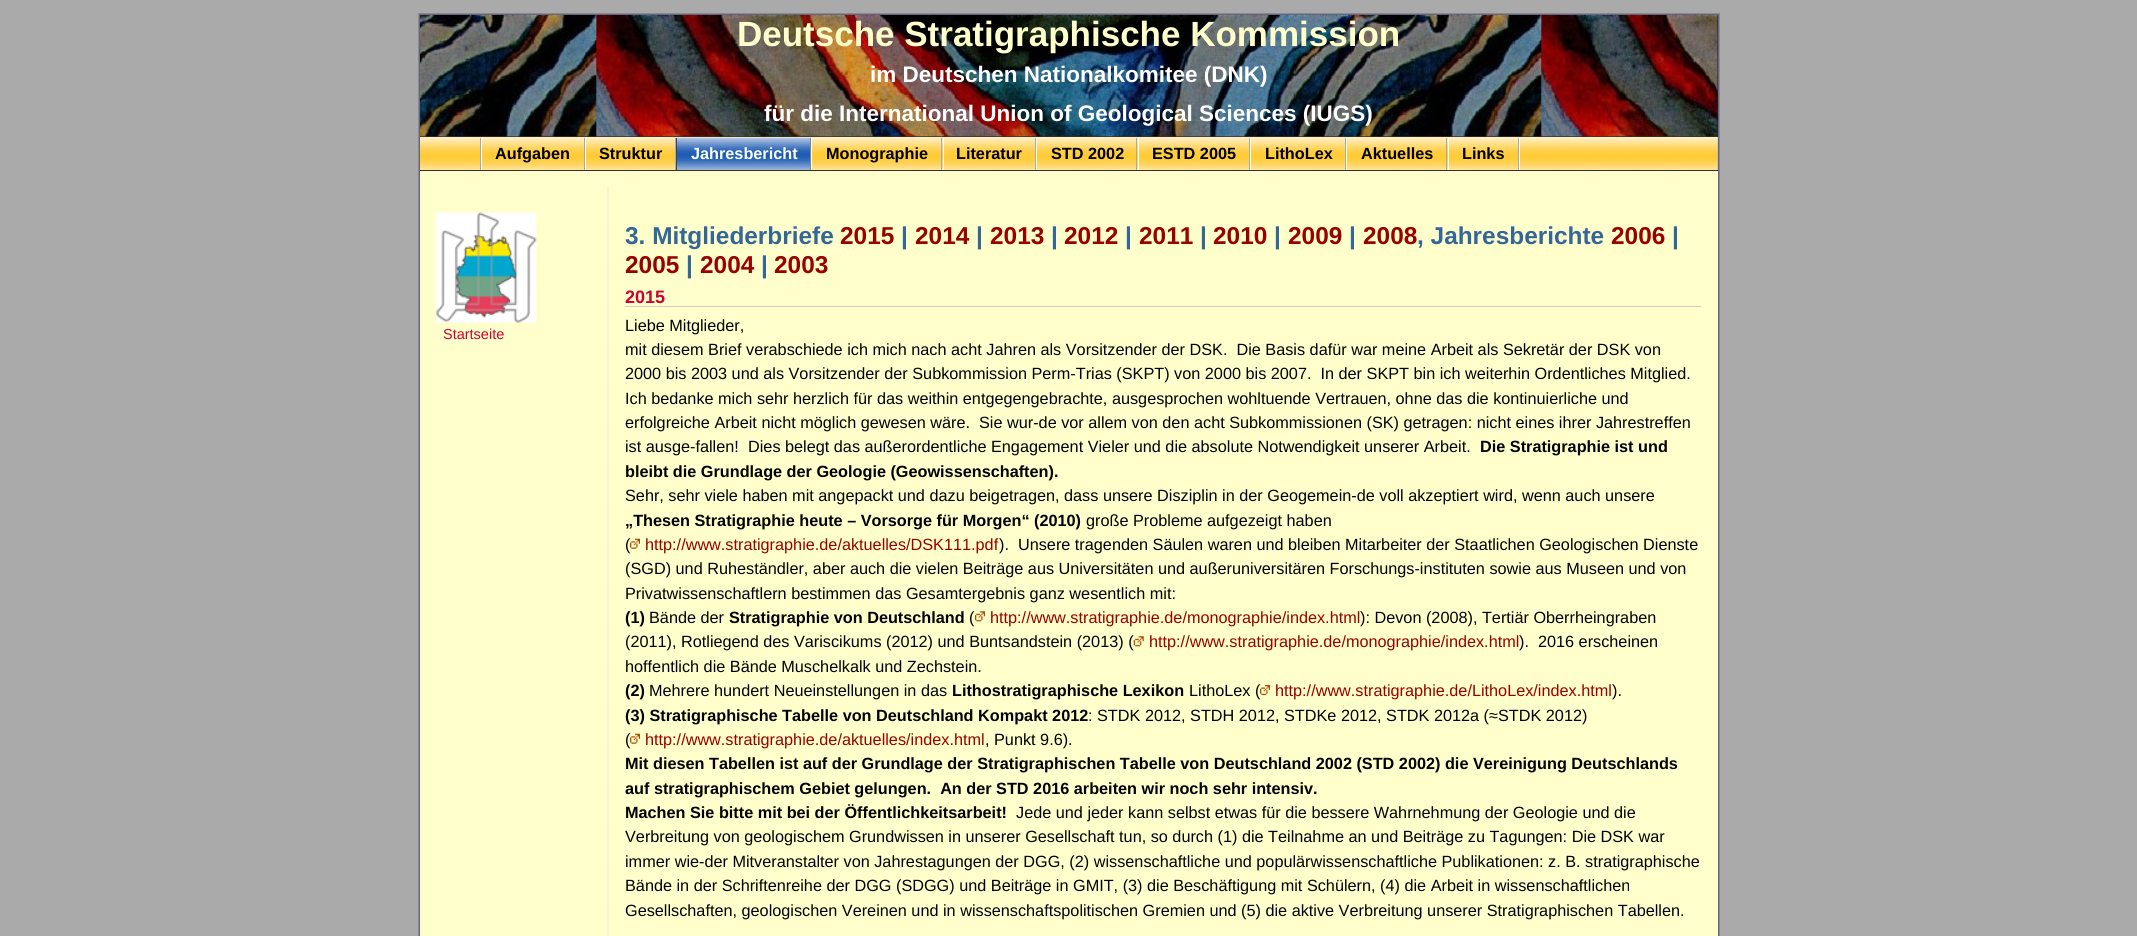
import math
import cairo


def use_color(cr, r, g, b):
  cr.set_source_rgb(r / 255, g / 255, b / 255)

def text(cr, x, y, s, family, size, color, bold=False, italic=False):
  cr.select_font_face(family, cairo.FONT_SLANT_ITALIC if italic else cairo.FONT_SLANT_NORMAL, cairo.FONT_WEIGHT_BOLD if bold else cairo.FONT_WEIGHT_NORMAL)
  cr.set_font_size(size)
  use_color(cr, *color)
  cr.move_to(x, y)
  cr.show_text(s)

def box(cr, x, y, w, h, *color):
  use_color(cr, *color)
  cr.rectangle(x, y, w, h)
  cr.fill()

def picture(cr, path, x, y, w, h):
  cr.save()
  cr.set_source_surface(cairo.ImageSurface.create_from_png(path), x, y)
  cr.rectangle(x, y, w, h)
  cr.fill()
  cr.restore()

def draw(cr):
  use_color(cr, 170, 170, 170)
  cr.paint()
  cr.rectangle(418.5, 13.5, 1301, 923)
  use_color(cr, 136, 136, 153)
  cr.set_line_width(1)
  cr.stroke()
  cr.rectangle(419.5, 14.5, 1299, 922)
  use_color(cr, 102, 102, 119)
  cr.stroke()
  box(cr, 1717, 15, 1, 121, 31, 30, 46)
  box(cr, 420, 136, 1298, 1, 51, 51, 51)
  picture(cr, "img_01.png", 420, 55, 1298, 82)
  picture(cr, "img_02.png", 420, 15, 1298, 40)
  box(cr, 1717, 137, 1, 33, 184, 184, 184)
  box(cr, 420, 171, 1298, 765, 255, 255, 204)
  picture(cr, "img_03.png", 420, 137, 1298, 35)
  box(cr, 420, 170, 1298, 1, 51, 51, 51)
  box(cr, 480, 138, 1, 32, 170, 170, 170)
  box(cr, 584, 138, 1, 32, 170, 170, 170)
  box(cr, 481, 138, 1, 32, 255, 255, 255)
  box(cr, 675, 138, 1, 32, 170, 170, 170)
  box(cr, 585, 138, 1, 32, 255, 255, 255)
  picture(cr, "img_04.png", 676, 137, 136, 33)
  box(cr, 810, 138, 1, 32, 136, 136, 136)
  box(cr, 676, 138, 1, 32, 68, 68, 68)
  box(cr, 941, 138, 1, 32, 170, 170, 170)
  box(cr, 811, 138, 1, 32, 255, 255, 255)
  box(cr, 1035, 138, 1, 32, 170, 170, 170)
  box(cr, 943, 138, 1, 32, 255, 255, 255)
  box(cr, 1136, 138, 1, 32, 170, 170, 170)
  box(cr, 1036, 138, 1, 32, 255, 255, 255)
  box(cr, 1249, 138, 1, 32, 170, 170, 170)
  box(cr, 1138, 138, 1, 32, 255, 255, 255)
  box(cr, 1345, 138, 1, 32, 170, 170, 170)
  box(cr, 1250, 138, 1, 32, 255, 255, 255)
  box(cr, 1446, 138, 1, 32, 170, 170, 170)
  box(cr, 1346, 138, 1, 32, 255, 255, 255)
  box(cr, 1518, 138, 1, 32, 170, 170, 170)
  box(cr, 1448, 138, 1, 32, 255, 255, 255)
  box(cr, 1519, 138, 1, 32, 255, 255, 255)
  picture(cr, "img_05.png", 436, 212, 101, 111)
  cr.new_path()
  cr.move_to(608, 187.5)
  cr.line_to(608, 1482.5)
  use_color(cr, 221, 221, 221)
  cr.set_line_width(1.2)
  cr.set_dash([1.25, 1.25])
  cr.stroke()
  box(cr, 625, 306, 1076, 1, 204, 204, 204)
  picture(cr, "img_07.png", 975, 611, 10, 11)
  picture(cr, "img_09.png", 1260, 685, 10, 11)
  text(cr, 737, 46, "Deutsche Stratigraphische Kommission", "Liberation Sans", 35, (255, 255, 204), bold=True)
  text(cr, 870, 82, "im Deutschen Nationalkomitee (DNK)", "Liberation Sans", 22.5, (255, 255, 255), bold=True)
  text(cr, 764, 121, "für die International Union of Geological Sciences (IUGS)", "Liberation Sans", 22.5, (255, 255, 255), bold=True)
  text(cr, 495, 159, "Aufgaben", "Liberation Sans", 16.25, (0, 0, 0), bold=True)
  text(cr, 599, 159, "Struktur", "Liberation Sans", 16.25, (0, 0, 0), bold=True)
  text(cr, 691, 159, "Jahresbericht", "Liberation Sans", 16.25, (255, 255, 255), bold=True)
  text(cr, 826, 159, "Monographie", "Liberation Sans", 16.25, (0, 0, 0), bold=True)
  text(cr, 956, 159, "Literatur", "Liberation Sans", 16.25, (0, 0, 0), bold=True)
  text(cr, 1051, 159, "STD 2002", "Liberation Sans", 16.25, (0, 0, 0), bold=True)
  text(cr, 1152, 159, "ESTD 2005", "Liberation Sans", 16.25, (0, 0, 0), bold=True)
  text(cr, 1265, 159, "LithoLex", "Liberation Sans", 16.25, (0, 0, 0), bold=True)
  text(cr, 1361, 159, "Aktuelles", "Liberation Sans", 16.25, (0, 0, 0), bold=True)
  text(cr, 1462, 159, "Links", "Liberation Sans", 16.25, (0, 0, 0), bold=True)
  text(cr, 443, 339, "Startseite", "Liberation Sans", 14.5, (204, 0, 51))
  text(cr, 625, 244, "3. Mitgliederbriefe", "Liberation Sans", 24.4, (51, 102, 153), bold=True)
  text(cr, 840, 244, "2015", "Liberation Sans", 24.4, (153, 0, 0), bold=True)
  text(cr, 901, 244, "|", "Liberation Sans", 24.4, (51, 102, 153), bold=True)
  text(cr, 915, 244, "2014", "Liberation Sans", 24.4, (153, 0, 0), bold=True)
  text(cr, 976, 244, "|", "Liberation Sans", 24.4, (51, 102, 153), bold=True)
  text(cr, 990, 244, "2013", "Liberation Sans", 24.4, (153, 0, 0), bold=True)
  text(cr, 1051, 244, "|", "Liberation Sans", 24.4, (51, 102, 153), bold=True)
  text(cr, 1064, 244, "2012", "Liberation Sans", 24.4, (153, 0, 0), bold=True)
  text(cr, 1125, 244, "|", "Liberation Sans", 24.4, (51, 102, 153), bold=True)
  text(cr, 1139, 244, "2011", "Liberation Sans", 24.4, (153, 0, 0), bold=True)
  text(cr, 1200, 244, "|", "Liberation Sans", 24.4, (51, 102, 153), bold=True)
  text(cr, 1213, 244, "2010", "Liberation Sans", 24.4, (153, 0, 0), bold=True)
  text(cr, 1274, 244, "|", "Liberation Sans", 24.4, (51, 102, 153), bold=True)
  text(cr, 1288, 244, "2009", "Liberation Sans", 24.4, (153, 0, 0), bold=True)
  text(cr, 1349, 244, "|", "Liberation Sans", 24.4, (51, 102, 153), bold=True)
  text(cr, 1363, 244, "2008", "Liberation Sans", 24.4, (153, 0, 0), bold=True)
  text(cr, 1417, 244, ", Jahresberichte", "Liberation Sans", 24.4, (51, 102, 153), bold=True)
  text(cr, 1611, 244, "2006", "Liberation Sans", 24.4, (153, 0, 0), bold=True)
  text(cr, 1672, 244, "|", "Liberation Sans", 24.4, (51, 102, 153), bold=True)
  text(cr, 625, 273, "2005", "Liberation Sans", 24.4, (153, 0, 0), bold=True)
  text(cr, 686, 273, "|", "Liberation Sans", 24.4, (51, 102, 153), bold=True)
  text(cr, 700, 273, "2004", "Liberation Sans", 24.4, (153, 0, 0), bold=True)
  text(cr, 761, 273, "|", "Liberation Sans", 24.4, (51, 102, 153), bold=True)
  text(cr, 774, 273, "2003", "Liberation Sans", 24.4, (153, 0, 0), bold=True)
  text(cr, 625, 303, "2015", "Liberation Sans", 18, (204, 0, 51), bold=True)
  text(cr, 625, 331, "Liebe Mitglieder,", "Liberation Sans", 16.25, (0, 0, 0))
  text(cr, 625, 355, "mit diesem Brief verabschiede ich mich nach acht Jahren als Vorsitzender der DSK.  Die Basis dafür war meine Arbeit als Sekretär der DSK von", "Liberation Sans", 16.25, (0, 0, 0))
  text(cr, 625, 379, "2000 bis 2003 und als Vorsitzender der Subkommission Perm-Trias (SKPT) von 2000 bis 2007.  In der SKPT bin ich weiterhin Ordentliches Mitglied.", "Liberation Sans", 16.25, (0, 0, 0))
  text(cr, 625, 404, "Ich bedanke mich sehr herzlich für das weithin entgegengebrachte, ausgesprochen wohltuende Vertrauen, ohne das die kontinuierliche und", "Liberation Sans", 16.25, (0, 0, 0))
  text(cr, 625, 428, "erfolgreiche Arbeit nicht möglich gewesen wäre.", "Liberation Sans", 16.25, (0, 0, 0))
  text(cr, 979, 428, "Sie wur-de vor allem von den acht Subkommissionen (SK) getragen: nicht eines ihrer Jahrestreffen", "Liberation Sans", 16.25, (0, 0, 0))
  text(cr, 625, 452, "ist ausge-fallen!", "Liberation Sans", 16.25, (0, 0, 0))
  text(cr, 748, 452, "Dies belegt das außerordentliche Engagement Vieler und die absolute Notwendigkeit unserer Arbeit.", "Liberation Sans", 16.25, (0, 0, 0))
  text(cr, 1480, 452, "Die Stratigraphie ist und", "Liberation Sans", 16.25, (0, 0, 0), bold=True)
  text(cr, 625, 477, "bleibt die Grundlage der Geologie (Geowissenschaften).", "Liberation Sans", 16.25, (0, 0, 0), bold=True)
  text(cr, 625, 501, "Sehr, sehr viele haben mit angepackt und dazu beigetragen, dass unsere Disziplin in der Geogemein-de voll akzeptiert wird, wenn auch unsere", "Liberation Sans", 16.25, (0, 0, 0))
  text(cr, 625, 526, "„Thesen Stratigraphie heute – Vorsorge für Morgen“ (2010)", "Liberation Sans", 16.25, (0, 0, 0), bold=True)
  text(cr, 1086, 526, "große Probleme aufgezeigt haben", "Liberation Sans", 16.25, (0, 0, 0))
  text(cr, 625, 550, "(", "Liberation Sans", 16.25, (0, 0, 0))
  picture(cr, "img_06.png", 630, 538, 10, 11)
  text(cr, 645, 550, "http://www.stratigraphie.de/aktuelles/DSK111.pdf", "Liberation Sans", 16.25, (153, 0, 0))
  text(cr, 999, 550, ").  Unsere tragenden Säulen waren und bleiben Mitarbeiter der Staatlichen Geologischen Dienste", "Liberation Sans", 16.25, (0, 0, 0))
  text(cr, 625, 574, "(SGD) und Ruheständler, aber auch die vielen Beiträge aus Universitäten und außeruniversitären Forschungs-instituten sowie aus Museen und von", "Liberation Sans", 16.25, (0, 0, 0))
  text(cr, 625, 599, "Privatwissenschaftlern bestimmen das Gesamtergebnis ganz wesentlich mit:", "Liberation Sans", 16.25, (0, 0, 0))
  text(cr, 625, 623, "(1)", "Liberation Sans", 16.25, (0, 0, 0), bold=True)
  text(cr, 649, 623, "Bände der", "Liberation Sans", 16.25, (0, 0, 0))
  text(cr, 729, 623, "Stratigraphie von Deutschland", "Liberation Sans", 16.25, (0, 0, 0), bold=True)
  text(cr, 969, 623, "(", "Liberation Sans", 16.25, (0, 0, 0))
  text(cr, 990, 623, "http://www.stratigraphie.de/monographie/index.html", "Liberation Sans", 16.25, (153, 0, 0))
  text(cr, 1360, 623, "): Devon (2008), Tertiär Oberrheingraben", "Liberation Sans", 16.25, (0, 0, 0))
  text(cr, 625, 647, "(2011), Rotliegend des Variscikums (2012) und Buntsandstein (2013) (", "Liberation Sans", 16.25, (0, 0, 0))
  picture(cr, "img_08.png", 1133, 636, 11, 11)
  text(cr, 1149, 647, "http://www.stratigraphie.de/monographie/index.html", "Liberation Sans", 16.25, (153, 0, 0))
  text(cr, 1519, 647, ").  2016 erscheinen", "Liberation Sans", 16.25, (0, 0, 0))
  text(cr, 625, 672, "hoffentlich die Bände Muschelkalk und Zechstein.", "Liberation Sans", 16.25, (0, 0, 0))
  text(cr, 625, 696, "(2)", "Liberation Sans", 16.25, (0, 0, 0), bold=True)
  text(cr, 649, 696, "Mehrere hundert Neueinstellungen in das", "Liberation Sans", 16.25, (0, 0, 0))
  text(cr, 952, 696, "Lithostratigraphische Lexikon", "Liberation Sans", 16.25, (0, 0, 0), bold=True)
  text(cr, 1189, 696, "LithoLex (", "Liberation Sans", 16.25, (0, 0, 0))
  text(cr, 1275, 696, "http://www.stratigraphie.de/LithoLex/index.html", "Liberation Sans", 16.25, (153, 0, 0))
  text(cr, 1612, 696, ").", "Liberation Sans", 16.25, (0, 0, 0))
  text(cr, 625, 721, "(3) Stratigraphische Tabelle von Deutschland Kompakt 2012", "Liberation Sans", 16.25, (0, 0, 0), bold=True)
  text(cr, 1088, 721, ": STDK 2012, STDH 2012, STDKe 2012, STDK 2012a (≈STDK 2012)", "Liberation Sans", 16.25, (0, 0, 0))
  text(cr, 625, 745, "(", "Liberation Sans", 16.25, (0, 0, 0))
  picture(cr, "img_06.png", 630, 733, 10, 11)
  text(cr, 645, 745, "http://www.stratigraphie.de/aktuelles/index.html", "Liberation Sans", 16.25, (153, 0, 0))
  text(cr, 985, 745, ", Punkt 9.6).", "Liberation Sans", 16.25, (0, 0, 0))
  text(cr, 625, 769, "Mit diesen Tabellen ist auf der Grundlage der Stratigraphischen Tabelle von Deutschland 2002 (STD 2002) die Vereinigung Deutschlands", "Liberation Sans", 16.25, (0, 0, 0), bold=True)
  text(cr, 625, 794, "auf stratigraphischem Gebiet gelungen.  An der STD 2016 arbeiten wir noch sehr intensiv.", "Liberation Sans", 16.25, (0, 0, 0), bold=True)
  text(cr, 625, 818, "Machen Sie bitte mit bei der Öffentlichkeitsarbeit!", "Liberation Sans", 16.25, (0, 0, 0), bold=True)
  text(cr, 1016, 818, "Jede und jeder kann selbst etwas für die bessere Wahrnehmung der Geologie und die", "Liberation Sans", 16.25, (0, 0, 0))
  text(cr, 625, 842, "Verbreitung von geologischem Grundwissen in unserer Gesellschaft tun, so durch (1) die Teilnahme an und Beiträge zu Tagungen: Die DSK war", "Liberation Sans", 16.25, (0, 0, 0))
  text(cr, 625, 867, "immer wie-der Mitveranstalter von Jahrestagungen der DGG, (2) wissenschaftliche und populärwissenschaftliche Publikationen: z. B. stratigraphische", "Liberation Sans", 16.25, (0, 0, 0))
  text(cr, 625, 891, "Bände in der Schriftenreihe der DGG (SDGG) und Beiträge in GMIT, (3) die Beschäftigung mit Schülern, (4) die Arbeit in wissenschaftlichen", "Liberation Sans", 16.25, (0, 0, 0))
  text(cr, 625, 916, "Gesellschaften, geologischen Vereinen und in wissenschaftspolitischen Gremien und (5) die aktive Verbreitung unserer Stratigraphischen Tabellen.", "Liberation Sans", 16.25, (0, 0, 0))


surface = cairo.ImageSurface(cairo.FORMAT_RGB24, 2137, 936)
cr = cairo.Context(surface)
options = cairo.FontOptions()
options.set_hint_metrics(cairo.HINT_METRICS_OFF)
options.set_hint_style(cairo.HINT_STYLE_NONE)
cr.set_font_options(options)
cr.set_miter_limit(4)
draw(cr)
surface.write_to_png("out.png")
